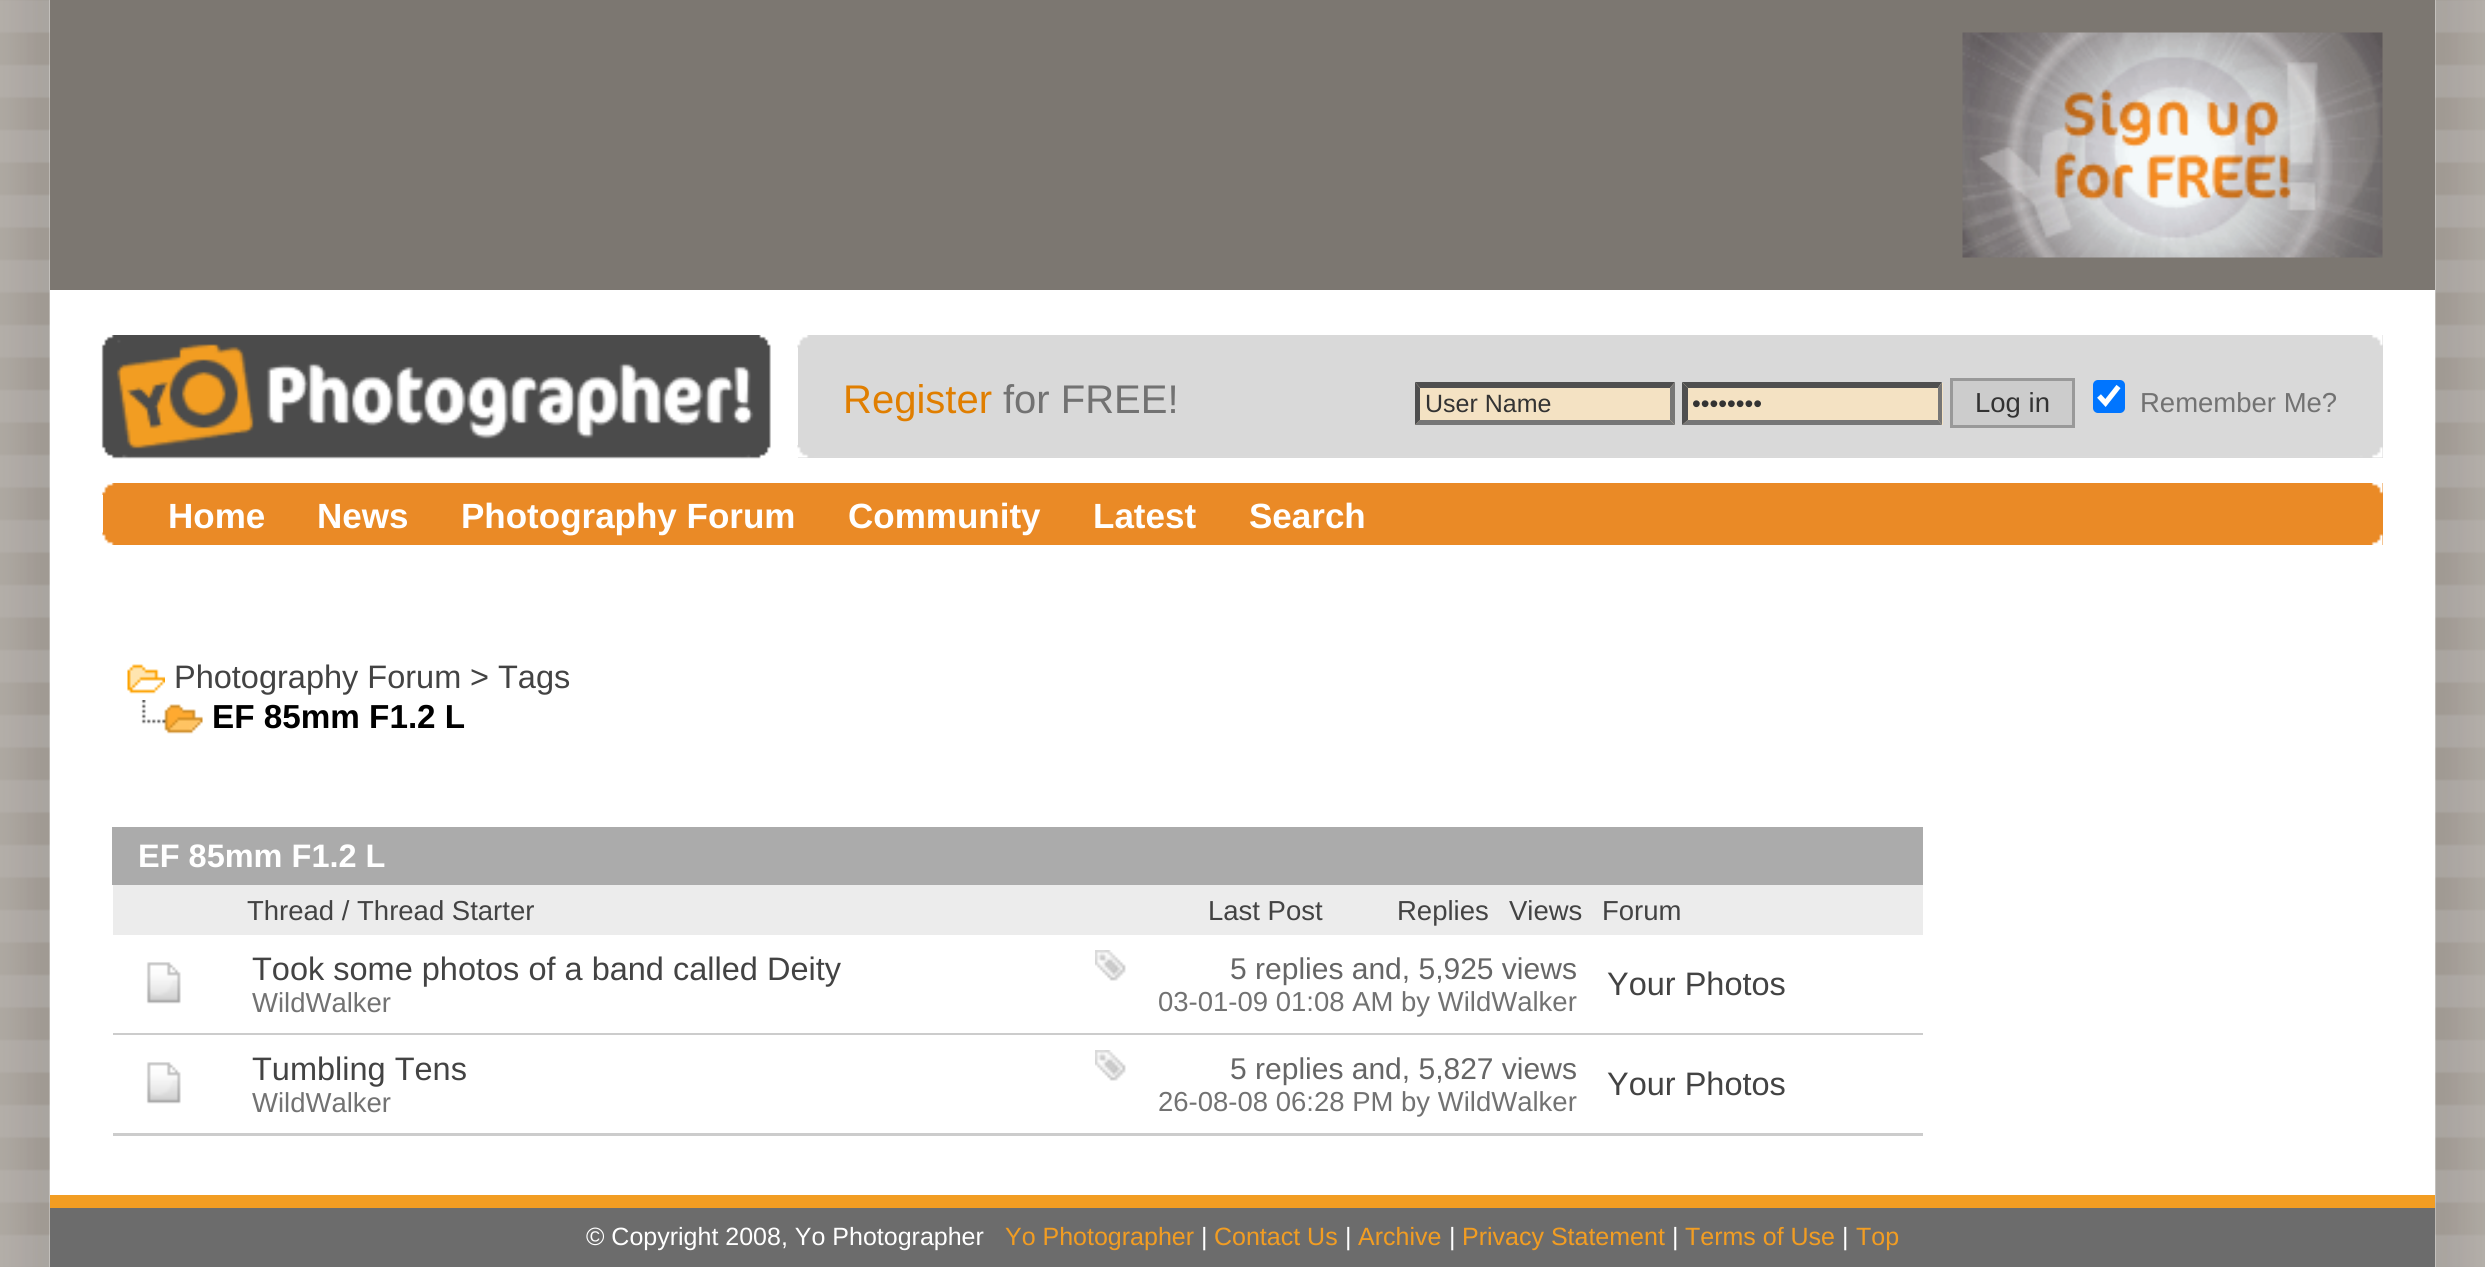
import math
import cairo


def use_color(cr, r, g, b):
  cr.set_source_rgb(r / 255, g / 255, b / 255)

def text(cr, x, y, s, family, size, color, bold=False, italic=False):
  cr.select_font_face(family, cairo.FONT_SLANT_ITALIC if italic else cairo.FONT_SLANT_NORMAL, cairo.FONT_WEIGHT_BOLD if bold else cairo.FONT_WEIGHT_NORMAL)
  cr.set_font_size(size)
  use_color(cr, *color)
  cr.move_to(x, y)
  cr.show_text(s)

def box(cr, x, y, w, h, *color):
  use_color(cr, *color)
  cr.rectangle(x, y, w, h)
  cr.fill()

def round_rect(cr, x, y, w, h, r):
  cr.new_sub_path()
  for i, (u, v) in enumerate([(x + w - r, y + h - r), (x + r, y + h - r), (x + r, y + r), (x + w - r, y + r)]):
    cr.arc(u, v, r, i * math.pi / 2, (i + 1) * math.pi / 2)
  cr.close_path()

def picture(cr, path, x, y, w, h):
  cr.save()
  cr.set_source_surface(cairo.ImageSurface.create_from_png(path), x, y)
  cr.rectangle(x, y, w, h)
  cr.fill()
  cr.restore()

def draw(cr):
  use_color(cr, 255, 255, 255)
  cr.paint()
  picture(cr, "img_01.png", 0, 0, 2485, 1267)
  box(cr, 50, 290, 2385, 905, 255, 255, 255)
  box(cr, 50, 0, 2385, 290, 124, 119, 113)
  picture(cr, "img_02.png", 1962, 32, 421, 226)
  picture(cr, "img_03.png", 101, 335, 670, 124)
  box(cr, 798, 335, 1585, 123, 217, 217, 217)
  picture(cr, "img_04.png", 797, 445, 1586, 13)
  picture(cr, "img_05.png", 797, 335, 1586, 13)
  box(cr, 1415, 383, 260, 42, 244, 226, 195)
  use_color(cr, 79, 79, 79)
  cr.new_path()
  cr.move_to(1415, 382)
  cr.line_to(1675, 382)
  cr.line_to(1670, 388)
  cr.line_to(1420, 388)
  cr.close_path()
  cr.fill()
  use_color(cr, 118, 118, 118)
  cr.new_path()
  cr.move_to(1675, 382)
  cr.line_to(1675, 425)
  cr.line_to(1670, 420)
  cr.line_to(1670, 388)
  cr.close_path()
  cr.fill()
  cr.new_path()
  cr.move_to(1675, 425)
  cr.line_to(1415, 425)
  cr.line_to(1420, 420)
  cr.line_to(1670, 420)
  cr.close_path()
  cr.fill()
  use_color(cr, 79, 79, 79)
  cr.new_path()
  cr.move_to(1415, 425)
  cr.line_to(1415, 382)
  cr.line_to(1420, 388)
  cr.line_to(1420, 420)
  cr.close_path()
  cr.fill()
  box(cr, 1683, 383, 260, 42, 244, 226, 195)
  use_color(cr, 79, 79, 79)
  cr.new_path()
  cr.move_to(1682, 382)
  cr.line_to(1942, 382)
  cr.line_to(1938, 388)
  cr.line_to(1688, 388)
  cr.close_path()
  cr.fill()
  use_color(cr, 118, 118, 118)
  cr.new_path()
  cr.move_to(1942, 382)
  cr.line_to(1942, 425)
  cr.line_to(1938, 420)
  cr.line_to(1938, 388)
  cr.close_path()
  cr.fill()
  cr.new_path()
  cr.move_to(1942, 425)
  cr.line_to(1682, 425)
  cr.line_to(1688, 420)
  cr.line_to(1938, 420)
  cr.close_path()
  cr.fill()
  use_color(cr, 79, 79, 79)
  cr.new_path()
  cr.move_to(1682, 425)
  cr.line_to(1682, 382)
  cr.line_to(1688, 388)
  cr.line_to(1688, 420)
  cr.close_path()
  cr.fill()
  use_color(cr, 204, 204, 204)
  cr.rectangle(1951.5, 379.5, 122, 47)
  cr.fill_preserve()
  use_color(cr, 153, 153, 153)
  cr.set_line_width(3)
  cr.stroke()
  use_color(cr, 0, 117, 255)
  round_rect(cr, 2093, 380, 32, 33, 5)
  cr.fill()
  cr.new_path()
  cr.move_to(2099, 396)
  cr.line_to(2105.5, 403)
  cr.line_to(2118.5, 386.5)
  use_color(cr, 255, 255, 255)
  cr.set_line_width(5.2)
  cr.stroke()
  box(cr, 103, 483, 2280, 62, 234, 138, 38)
  picture(cr, "img_06.png", 102, 532, 2281, 13)
  picture(cr, "img_07.png", 102, 482, 2281, 13)
  box(cr, 103, 482, 2271, 1, 255, 255, 255)
  picture(cr, "img_08.png", 127, 664, 38, 30)
  picture(cr, "img_09.png", 141, 700, 62, 34)
  box(cr, 112, 827, 1811, 58, 171, 171, 171)
  box(cr, 113, 885, 1810, 50, 236, 236, 236)
  picture(cr, "img_10.png", 1095, 950, 31, 31)
  box(cr, 113, 1033, 1810, 2, 204, 204, 204)
  picture(cr, "img_11.png", 146, 962, 35, 42)
  picture(cr, "img_10.png", 1095, 1050, 31, 31)
  box(cr, 113, 1133, 1810, 3, 204, 204, 204)
  picture(cr, "img_11.png", 146, 1062, 35, 42)
  box(cr, 50, 1208, 2385, 59, 108, 108, 108)
  box(cr, 50, 1195, 2385, 13, 242, 157, 34)
  text(cr, 843, 413, "Register", "Liberation Sans", 40, (224, 126, 0))
  text(cr, 1003, 413, "for FREE!", "Liberation Sans", 40, (114, 114, 114))
  text(cr, 1425, 412, "User Name", "Liberation Sans", 25, (51, 51, 51))
  text(cr, 1692, 412, "••••••••", "Liberation Sans", 25, (51, 51, 51))
  text(cr, 1975, 412, "Log in", "Liberation Sans", 27.5, (51, 51, 51))
  text(cr, 2140, 412, "Remember Me?", "Liberation Sans", 27.5, (114, 114, 114))
  text(cr, 168, 528, "Home", "Liberation Sans", 35, (255, 255, 255), bold=True)
  text(cr, 317, 528, "News", "Liberation Sans", 35, (255, 255, 255), bold=True)
  text(cr, 461, 528, "Photography Forum", "Liberation Sans", 35, (255, 255, 255), bold=True)
  text(cr, 848, 528, "Community", "Liberation Sans", 35, (255, 255, 255), bold=True)
  text(cr, 1093, 528, "Latest", "Liberation Sans", 35, (255, 255, 255), bold=True)
  text(cr, 1249, 528, "Search", "Liberation Sans", 35, (255, 255, 255), bold=True)
  text(cr, 174, 688, "Photography Forum", "Liberation Sans", 32.5, (67, 67, 67))
  text(cr, 470, 688, ">", "Liberation Sans", 32.5, (67, 67, 67))
  text(cr, 498, 688, "Tags", "Liberation Sans", 32.5, (67, 67, 67))
  text(cr, 212, 728, "EF 85mm F1.2 L", "Liberation Sans", 33.25, (0, 0, 0), bold=True)
  text(cr, 138, 867, "EF 85mm F1.2 L", "Liberation Sans", 32.5, (255, 255, 255), bold=True)
  text(cr, 247, 920, "Thread / Thread Starter", "Liberation Sans", 27.5, (67, 67, 67))
  text(cr, 1208, 920, "Last Post", "Liberation Sans", 27.5, (67, 67, 67))
  text(cr, 1397, 920, "Replies", "Liberation Sans", 27.5, (67, 67, 67))
  text(cr, 1509, 920, "Views", "Liberation Sans", 27.5, (67, 67, 67))
  text(cr, 1602, 920, "Forum", "Liberation Sans", 27.5, (67, 67, 67))
  text(cr, 252, 980, "Took some photos of a band called Deity", "Liberation Sans", 32.5, (67, 67, 67))
  text(cr, 252, 1012, "WildWalker", "Liberation Sans", 27.5, (114, 114, 114))
  text(cr, 1230, 979, "5 replies and, 5,925 views", "Liberation Sans", 30, (102, 102, 102))
  text(cr, 1158, 1011, "03-01-09 01:08 AM by WildWalker", "Liberation Sans", 27.5, (114, 114, 114))
  text(cr, 1607, 995, "Your Photos", "Liberation Sans", 32.5, (67, 67, 67))
  text(cr, 252, 1080, "Tumbling Tens", "Liberation Sans", 32.5, (67, 67, 67))
  text(cr, 252, 1112, "WildWalker", "Liberation Sans", 27.5, (114, 114, 114))
  text(cr, 1230, 1079, "5 replies and, 5,827 views", "Liberation Sans", 30, (102, 102, 102))
  text(cr, 1158, 1111, "26-08-08 06:28 PM by WildWalker", "Liberation Sans", 27.5, (114, 114, 114))
  text(cr, 1607, 1095, "Your Photos", "Liberation Sans", 32.5, (67, 67, 67))
  text(cr, 586, 1245, "© Copyright 2008, Yo Photographer", "Liberation Sans", 25, (255, 255, 255))
  text(cr, 1005, 1245, "Yo Photographer", "Liberation Sans", 25, (242, 157, 34))
  text(cr, 1201, 1245, "|", "Liberation Sans", 25, (255, 255, 255))
  text(cr, 1214, 1245, "Contact Us", "Liberation Sans", 25, (242, 157, 34))
  text(cr, 1345, 1245, "|", "Liberation Sans", 25, (255, 255, 255))
  text(cr, 1358, 1245, "Archive", "Liberation Sans", 25, (242, 157, 34))
  text(cr, 1449, 1245, "|", "Liberation Sans", 25, (255, 255, 255))
  text(cr, 1462, 1245, "Privacy Statement", "Liberation Sans", 25, (242, 157, 34))
  text(cr, 1672, 1245, "|", "Liberation Sans", 25, (255, 255, 255))
  text(cr, 1685, 1245, "Terms of Use", "Liberation Sans", 25, (242, 157, 34))
  text(cr, 1842, 1245, "|", "Liberation Sans", 25, (255, 255, 255))
  text(cr, 1856, 1245, "Top", "Liberation Sans", 25, (242, 157, 34))


surface = cairo.ImageSurface(cairo.FORMAT_RGB24, 2485, 1267)
cr = cairo.Context(surface)
options = cairo.FontOptions()
options.set_hint_metrics(cairo.HINT_METRICS_OFF)
options.set_hint_style(cairo.HINT_STYLE_NONE)
cr.set_font_options(options)
cr.set_miter_limit(4)
draw(cr)
surface.write_to_png("out.png")
